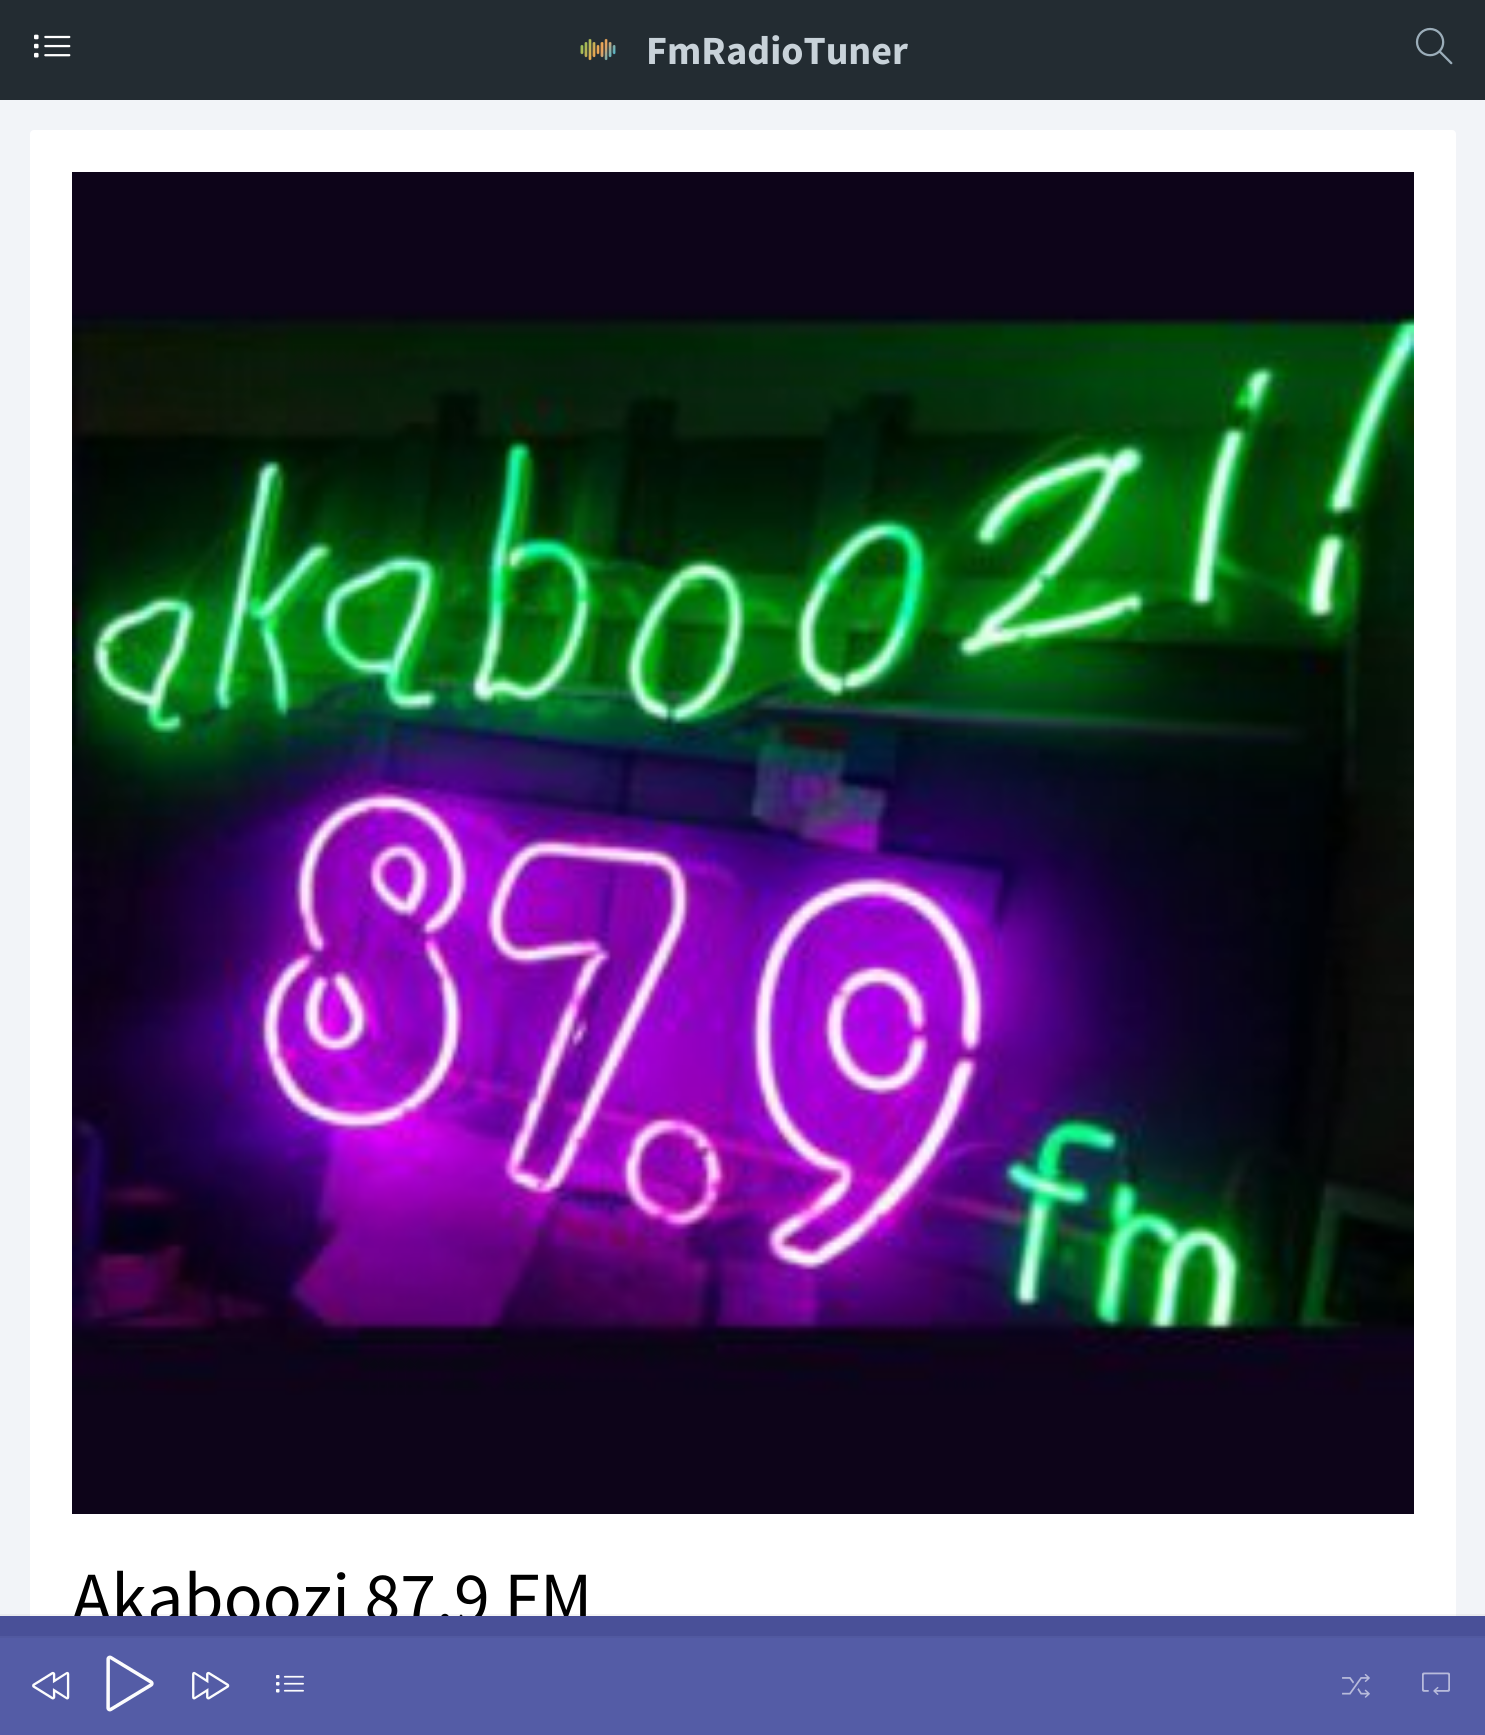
import math
import cairo


def use_color(cr, r, g, b):
  cr.set_source_rgb(r / 255, g / 255, b / 255)

def text(cr, x, y, s, family, size, color, bold=False, italic=False):
  cr.select_font_face(family, cairo.FONT_SLANT_ITALIC if italic else cairo.FONT_SLANT_NORMAL, cairo.FONT_WEIGHT_BOLD if bold else cairo.FONT_WEIGHT_NORMAL)
  cr.set_font_size(size)
  use_color(cr, *color)
  cr.move_to(x, y)
  cr.show_text(s)

def box(cr, x, y, w, h, *color):
  use_color(cr, *color)
  cr.rectangle(x, y, w, h)
  cr.fill()

def round_rect(cr, x, y, w, h, r):
  cr.new_sub_path()
  for i, (u, v) in enumerate([(x + w - r, y + h - r), (x + r, y + h - r), (x + r, y + r), (x + w - r, y + r)]):
    cr.arc(u, v, r, i * math.pi / 2, (i + 1) * math.pi / 2)
  cr.close_path()

def picture(cr, path, x, y, w, h):
  cr.save()
  cr.set_source_surface(cairo.ImageSurface.create_from_png(path), x, y)
  cr.rectangle(x, y, w, h)
  cr.fill()
  cr.restore()

def draw(cr):
  use_color(cr, 242, 244, 248)
  cr.paint()
  box(cr, 0, 0, 1485, 100, 35, 44, 50)
  picture(cr, "img_01.png", 34, 34, 37, 24)
  picture(cr, "img_02.png", 580, 38, 36, 23)
  picture(cr, "img_03.png", 1415, 27, 38, 38)
  use_color(cr, 255, 255, 255)
  round_rect(cr, 30, 130, 1426, 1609, 4)
  cr.fill()
  picture(cr, "img_04.png", 72, 172, 1342, 1342)
  box(cr, 0, 1638, 1485, 97, 84, 92, 166)
  box(cr, 0, 1636, 1485, 2, 81, 89, 160)
  cr.set_source_rgba(0, 0, 0, 0.04)
  cr.rectangle(0, 1614, 1485, 2)
  cr.fill()
  picture(cr, "img_05.png", 32, 1671, 38, 29)
  picture(cr, "img_06.png", 106, 1655, 48, 57)
  picture(cr, "img_07.png", 192, 1671, 38, 29)
  picture(cr, "img_08.png", 276, 1675, 28, 18)
  picture(cr, "img_09.png", 1342, 1674, 28, 24)
  picture(cr, "img_10.png", 1422, 1672, 28, 23)
  text(cr, 646, 64, "FmRadioTuner", "Source Sans Pro", 40, (200, 210, 217), bold=True)
  text(cr, 72, 1622, "Akaboozi 87.9 FM", "Source Sans Pro", 72, (0, 0, 0))
  box(cr, 0, 1616, 1485, 20, 73, 80, 152)


surface = cairo.ImageSurface(cairo.FORMAT_RGB24, 1485, 1735)
cr = cairo.Context(surface)
options = cairo.FontOptions()
options.set_hint_metrics(cairo.HINT_METRICS_OFF)
options.set_hint_style(cairo.HINT_STYLE_NONE)
cr.set_font_options(options)
cr.set_miter_limit(4)
draw(cr)
surface.write_to_png("out.png")
